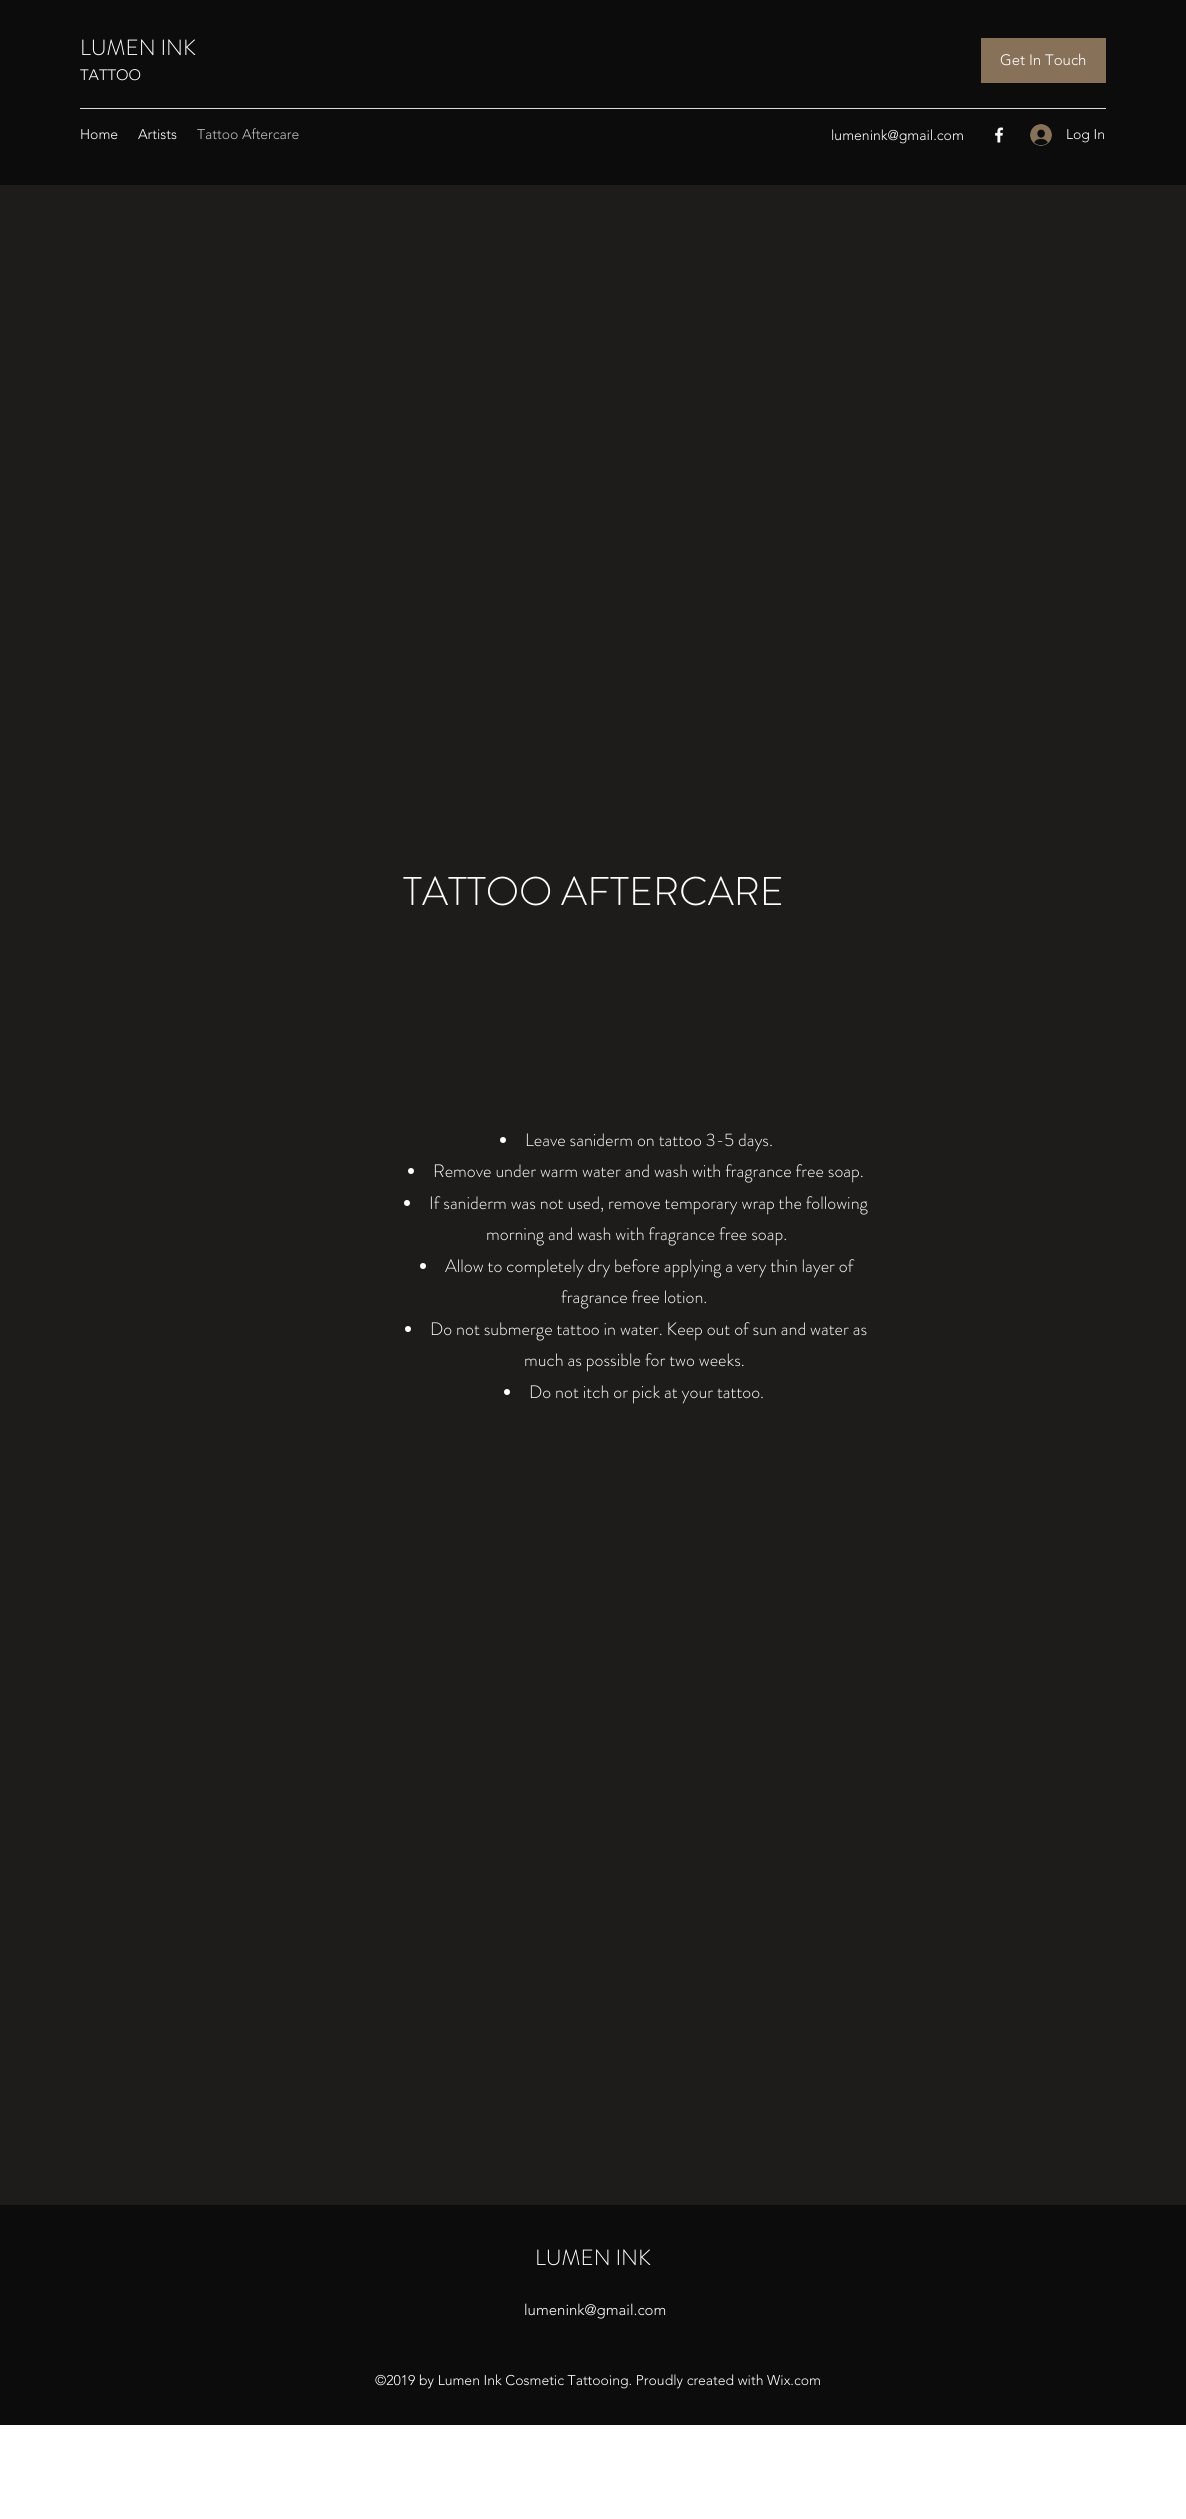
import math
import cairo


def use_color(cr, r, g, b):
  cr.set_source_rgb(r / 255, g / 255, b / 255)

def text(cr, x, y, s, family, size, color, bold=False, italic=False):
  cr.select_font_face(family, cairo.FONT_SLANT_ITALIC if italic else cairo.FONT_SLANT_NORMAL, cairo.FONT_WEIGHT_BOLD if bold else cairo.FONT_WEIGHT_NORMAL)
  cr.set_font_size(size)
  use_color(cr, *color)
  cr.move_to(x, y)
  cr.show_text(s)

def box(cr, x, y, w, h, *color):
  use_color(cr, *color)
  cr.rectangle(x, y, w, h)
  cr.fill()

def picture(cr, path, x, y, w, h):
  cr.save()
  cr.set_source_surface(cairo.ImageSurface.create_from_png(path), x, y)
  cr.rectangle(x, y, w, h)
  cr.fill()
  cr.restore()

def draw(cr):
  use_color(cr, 255, 255, 255)
  cr.paint()
  box(cr, 0, 0, 1186, 185, 13, 12, 12)
  box(cr, 981, 38, 125, 45, 136, 113, 89)
  box(cr, 80, 108, 1026, 1, 219, 219, 219)
  picture(cr, "img_01.png", 995, 127, 9, 16)
  picture(cr, "img_02.png", 1030, 124, 22, 22)
  box(cr, 0, 185, 1186, 2020, 30, 27, 27)
  use_color(cr, 255, 255, 255)
  cr.arc(503, 1140, 3, 0, 2 * math.pi)
  cr.fill()
  cr.arc(411, 1171, 3, 0, 2 * math.pi)
  cr.fill()
  cr.arc(407, 1203, 3, 0, 2 * math.pi)
  cr.fill()
  cr.arc(423, 1266, 3, 0, 2 * math.pi)
  cr.fill()
  cr.arc(408, 1329, 3, 0, 2 * math.pi)
  cr.fill()
  cr.arc(507, 1392, 3, 0, 2 * math.pi)
  cr.fill()
  box(cr, 0, 2205, 1186, 220, 13, 12, 12)
  text(cr, 80, 55, "LUMEN INK", "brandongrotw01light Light", 22, (255, 255, 255))
  text(cr, 80, 80, "TATTOO", "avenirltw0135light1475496 Light", 15, (255, 255, 255))
  text(cr, 1000, 65, "Get In Touch", "avenirltw0135light1475496 Light", 15, (255, 255, 255))
  text(cr, 80, 139, "Home", "avenirltw0135light1475496 Light", 14, (255, 255, 255))
  text(cr, 138, 139, "Artists", "avenirltw0135light1475496 Light", 14, (255, 255, 255))
  text(cr, 197, 139, "Tattoo Aftercare", "avenirltw0135light1475496 Light", 14, (190, 190, 190))
  text(cr, 831, 140, "lumenink@gmail.com", "avenirltw0135light1475496 Light", 14, (255, 255, 255))
  text(cr, 1066, 139, "Log In", "avenirltw0135light1475496 Light", 14, (255, 255, 255))
  text(cr, 403, 905, "TATTOO AFTERCARE", "brandongrotw01light Light", 40, (255, 255, 255))
  text(cr, 525, 1146, "Leave saniderm on tattoo 3-5 days.", "brandongrotw01light Light", 18, (255, 255, 255))
  text(cr, 433, 1177, "Remove under warm water and wash with fragrance free soap.", "brandongrotw01light Light", 18, (255, 255, 255))
  text(cr, 429, 1209, "If saniderm was not used, remove temporary wrap the following", "brandongrotw01light Light", 18, (255, 255, 255))
  text(cr, 486, 1240, "morning and wash with fragrance free soap.", "brandongrotw01light Light", 18, (255, 255, 255))
  text(cr, 445, 1272, "Allow to completely dry before applying a very thin layer of", "brandongrotw01light Light", 18, (255, 255, 255))
  text(cr, 561, 1303, "fragrance free lotion.", "brandongrotw01light Light", 18, (255, 255, 255))
  text(cr, 430, 1335, "Do not submerge tattoo in water. Keep out of sun and water as", "brandongrotw01light Light", 18, (255, 255, 255))
  text(cr, 524, 1366, "much as possible for two weeks.", "brandongrotw01light Light", 18, (255, 255, 255))
  text(cr, 529, 1398, "Do not itch or pick at your tattoo.", "brandongrotw01light Light", 18, (255, 255, 255))
  text(cr, 535, 2265, "LUMEN INK", "brandongrotw01light Light", 22, (255, 255, 255))
  text(cr, 524, 2315, "lumenink@gmail.com", "avenirltw0135light1475496 Light", 15, (255, 255, 255))
  text(cr, 375, 2385, "©2019 by Lumen Ink Cosmetic Tattooing. Proudly created with Wix.com", "avenirltw0135light1475496 Light", 14, (255, 255, 255))


surface = cairo.ImageSurface(cairo.FORMAT_RGB24, 1186, 2519)
cr = cairo.Context(surface)
options = cairo.FontOptions()
options.set_hint_metrics(cairo.HINT_METRICS_OFF)
options.set_hint_style(cairo.HINT_STYLE_NONE)
cr.set_font_options(options)
cr.set_miter_limit(4)
draw(cr)
surface.write_to_png("out.png")
